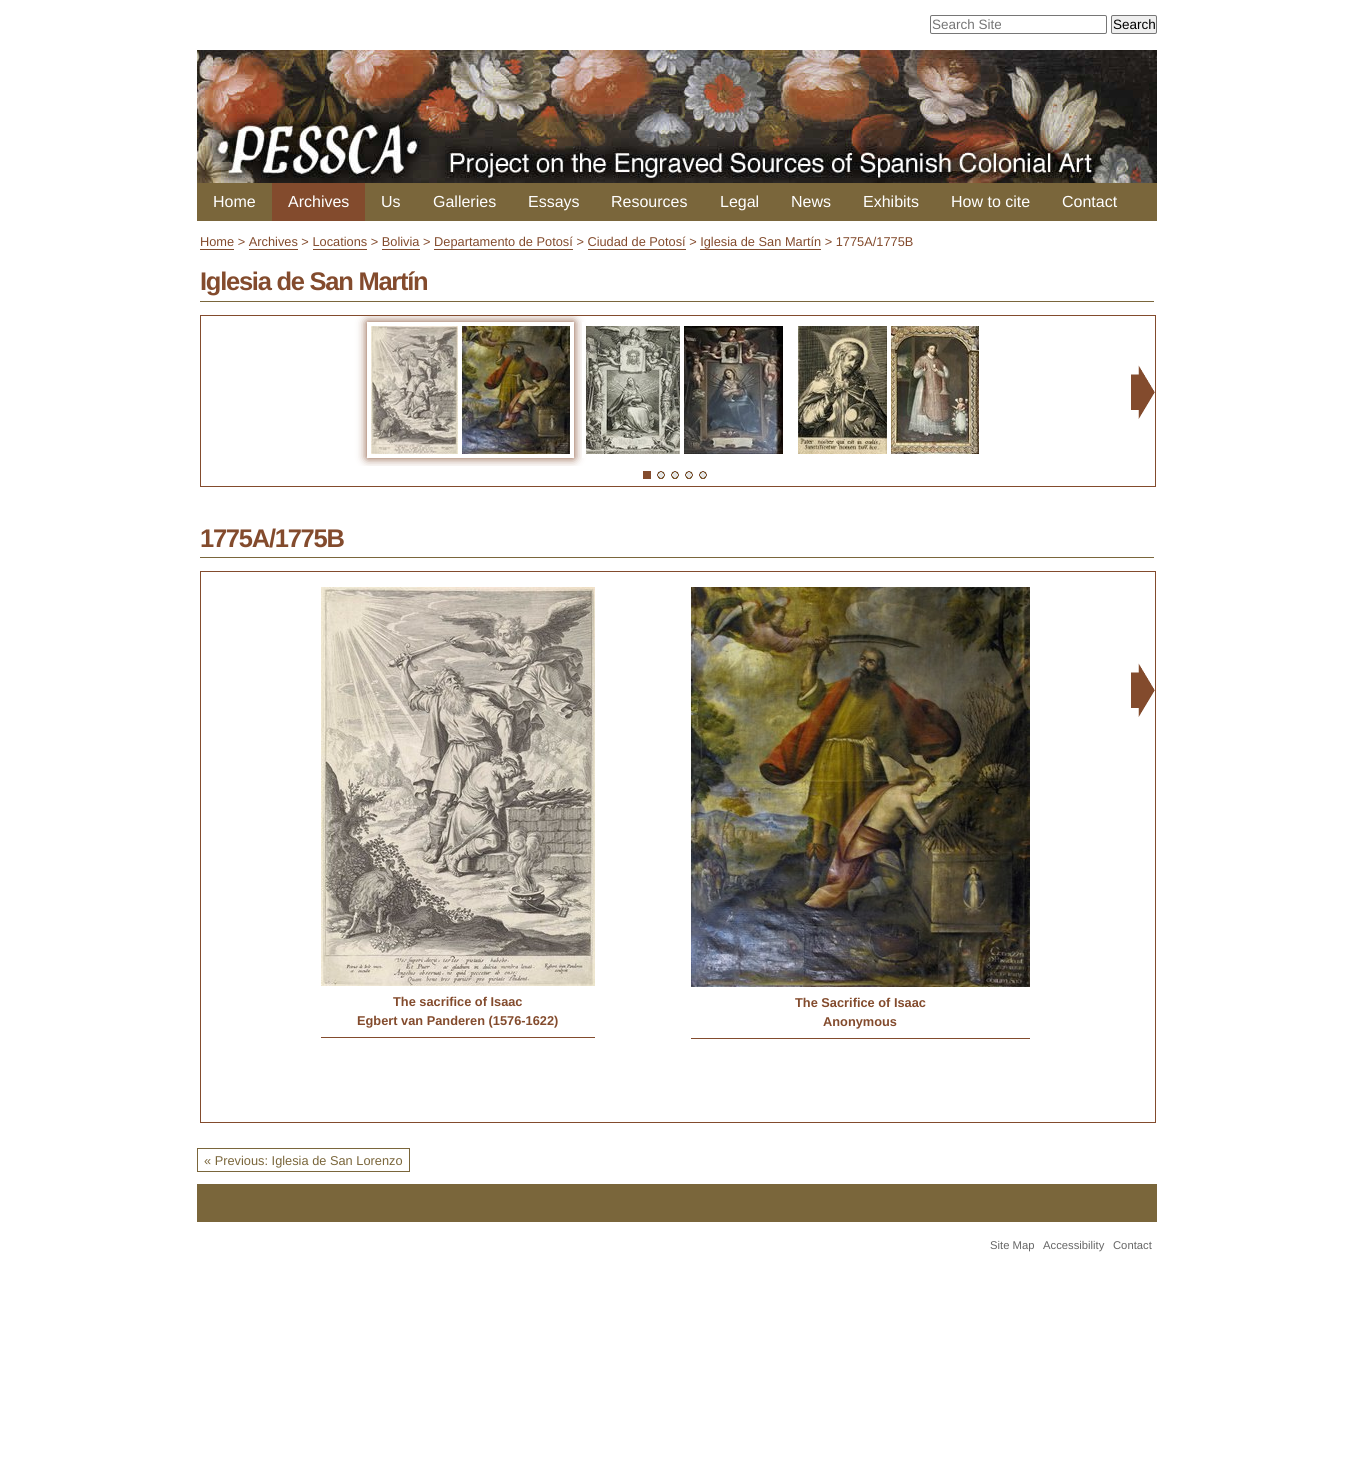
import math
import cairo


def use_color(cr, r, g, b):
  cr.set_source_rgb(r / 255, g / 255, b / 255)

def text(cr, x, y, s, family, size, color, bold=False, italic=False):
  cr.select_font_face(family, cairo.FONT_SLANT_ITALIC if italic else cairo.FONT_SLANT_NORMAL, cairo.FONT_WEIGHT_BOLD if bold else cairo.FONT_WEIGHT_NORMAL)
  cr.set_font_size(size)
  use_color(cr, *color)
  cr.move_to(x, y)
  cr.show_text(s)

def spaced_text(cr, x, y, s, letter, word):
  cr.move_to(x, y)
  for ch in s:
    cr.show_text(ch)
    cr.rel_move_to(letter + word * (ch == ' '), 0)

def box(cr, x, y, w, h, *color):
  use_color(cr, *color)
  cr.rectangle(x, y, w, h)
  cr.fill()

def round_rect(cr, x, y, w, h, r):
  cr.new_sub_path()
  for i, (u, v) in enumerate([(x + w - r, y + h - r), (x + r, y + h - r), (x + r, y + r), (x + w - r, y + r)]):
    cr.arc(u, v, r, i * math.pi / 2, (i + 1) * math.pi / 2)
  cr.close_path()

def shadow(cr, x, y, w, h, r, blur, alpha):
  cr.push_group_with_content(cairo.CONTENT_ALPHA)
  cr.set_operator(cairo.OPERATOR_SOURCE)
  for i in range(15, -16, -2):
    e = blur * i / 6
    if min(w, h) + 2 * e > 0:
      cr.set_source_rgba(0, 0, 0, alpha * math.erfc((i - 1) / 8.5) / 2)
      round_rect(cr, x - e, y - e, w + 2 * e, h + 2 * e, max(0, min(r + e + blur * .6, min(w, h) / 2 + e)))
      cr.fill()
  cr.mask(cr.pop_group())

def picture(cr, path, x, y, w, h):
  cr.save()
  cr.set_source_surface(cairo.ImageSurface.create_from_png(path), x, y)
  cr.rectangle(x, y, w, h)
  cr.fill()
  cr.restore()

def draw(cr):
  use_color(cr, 255, 255, 255)
  cr.paint()
  round_rect(cr, 930.5, 15.5, 176, 18, 1.5)
  use_color(cr, 118, 118, 118)
  cr.set_line_width(1)
  cr.stroke()
  use_color(cr, 239, 239, 239)
  round_rect(cr, 1111.5, 15.5, 45, 18, 1.5)
  cr.fill_preserve()
  use_color(cr, 118, 118, 118)
  cr.stroke()
  picture(cr, "img_01.png", 197, 50, 960, 133)
  box(cr, 197, 183, 960, 38, 122, 102, 59)
  box(cr, 272, 183, 93, 38, 131, 75, 45)
  box(cr, 200, 249, 34, 1, 131, 75, 45)
  box(cr, 249, 249, 49, 1, 131, 75, 45)
  box(cr, 313, 249, 54, 1, 131, 75, 45)
  box(cr, 382, 249, 38, 1, 131, 75, 45)
  box(cr, 434, 249, 139, 1, 131, 75, 45)
  box(cr, 588, 249, 98, 1, 131, 75, 45)
  box(cr, 700, 249, 121, 1, 131, 75, 45)
  box(cr, 200, 301, 954, 1, 122, 102, 59)
  cr.rectangle(200.5, 315.5, 955, 171)
  use_color(cr, 131, 75, 45)
  cr.stroke()
  cr.save()
  cr.rectangle(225, 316, 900, 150)
  cr.clip()
  cr.set_fill_rule(cairo.FILL_RULE_EVEN_ODD)
  cr.new_path()
  cr.move_to(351, 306)
  cr.line_to(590, 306)
  cr.line_to(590, 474)
  cr.line_to(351, 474)
  cr.close_path()
  cr.move_to(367, 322)
  cr.line_to(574, 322)
  cr.line_to(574, 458)
  cr.line_to(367, 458)
  cr.close_path()
  cr.clip()
  use_color(cr, 131, 75, 45)
  shadow(cr, 367, 322, 207, 136, 0, 5, 1)
  cr.restore()
  picture(cr, "img_02.png", 371, 326, 87, 128)
  picture(cr, "img_03.png", 462, 326, 108, 128)
  box(cr, 582, 322, 3, 136, 255, 255, 255)
  picture(cr, "img_04.png", 586, 326, 94, 128)
  picture(cr, "img_05.png", 684, 326, 99, 128)
  picture(cr, "img_06.png", 798, 326, 89, 128)
  picture(cr, "img_07.png", 891, 326, 88, 128)
  picture(cr, "img_08.png", 1131, 365, 24, 54)
  box(cr, 643, 471, 8, 8, 131, 75, 45)
  picture(cr, "img_09.png", 657, 471, 8, 8)
  picture(cr, "img_09.png", 671, 471, 8, 8)
  picture(cr, "img_09.png", 685, 471, 8, 8)
  picture(cr, "img_09.png", 699, 471, 8, 8)
  box(cr, 200, 557, 954, 1, 122, 102, 59)
  cr.rectangle(200.5, 571.5, 955, 551)
  use_color(cr, 131, 75, 45)
  cr.stroke()
  picture(cr, "img_08.png", 1131, 663, 24, 54)
  picture(cr, "img_10.png", 321, 587, 274, 399)
  box(cr, 321, 1037, 274, 1, 131, 75, 45)
  picture(cr, "img_11.png", 691, 587, 339, 400)
  box(cr, 691, 1038, 339, 1, 131, 75, 45)
  cr.rectangle(197.5, 1148.5, 212, 23)
  use_color(cr, 122, 102, 59)
  cr.stroke()
  box(cr, 197, 1184, 960, 38, 122, 102, 59)
  text(cr, 932, 29, "Search Site", "Liberation Sans", 13.5, (117, 117, 117))
  text(cr, 1113, 29, "Search", "Liberation Sans", 13.5, (0, 0, 0))
  text(cr, 213, 207, "Home", "Liberation Sans", 16, (255, 255, 255))
  text(cr, 288, 207, "Archives", "Liberation Sans", 16, (255, 255, 255))
  text(cr, 381, 207, "Us", "Liberation Sans", 16, (255, 255, 255))
  text(cr, 433, 207, "Galleries", "Liberation Sans", 16, (255, 255, 255))
  text(cr, 528, 207, "Essays", "Liberation Sans", 16, (255, 255, 255))
  text(cr, 611, 207, "Resources", "Liberation Sans", 16, (255, 255, 255))
  text(cr, 720, 207, "Legal", "Liberation Sans", 16, (255, 255, 255))
  text(cr, 791, 207, "News", "Liberation Sans", 16, (255, 255, 255))
  text(cr, 863, 207, "Exhibits", "Liberation Sans", 16, (255, 255, 255))
  text(cr, 951, 207, "How to cite", "Liberation Sans", 16, (255, 255, 255))
  text(cr, 1062, 207, "Contact", "Liberation Sans", 16, (255, 255, 255))
  text(cr, 200, 246, "Home > Archives > Locations > Bolivia > Departamento de Potosí > Ciudad de Potosí > Iglesia de San Martín > 1775A/1775B", "Liberation Sans", 12.8, (131, 75, 45))
  cr.select_font_face("Liberation Sans", cairo.FONT_SLANT_NORMAL, cairo.FONT_WEIGHT_BOLD)
  cr.set_font_size(25.5)
  spaced_text(cr, 200, 290, "Iglesia de San Martín", -1.25, 0)
  spaced_text(cr, 200, 547, "1775A/1775B", -1.25, 0)
  text(cr, 393, 1006, "The sacrifice of Isaac", "Liberation Sans", 12.8, (131, 75, 45), bold=True)
  text(cr, 357, 1025, "Egbert van Panderen (1576-1622)", "Liberation Sans", 12.8, (131, 75, 45), bold=True)
  text(cr, 795, 1007, "The Sacrifice of Isaac", "Liberation Sans", 12.8, (131, 75, 45), bold=True)
  text(cr, 823, 1026, "Anonymous", "Liberation Sans", 12.8, (131, 75, 45), bold=True)
  text(cr, 204, 1165, "« Previous: Iglesia de San Lorenzo", "Liberation Sans", 12.8, (122, 102, 59))
  text(cr, 990, 1249, "Site Map", "Liberation Sans", 11.25, (102, 102, 102))
  text(cr, 1043, 1249, "Accessibility", "Liberation Sans", 11.25, (102, 102, 102))
  text(cr, 1113, 1249, "Contact", "Liberation Sans", 11.25, (102, 102, 102))


surface = cairo.ImageSurface(cairo.FORMAT_RGB24, 1354, 1477)
cr = cairo.Context(surface)
options = cairo.FontOptions()
options.set_hint_metrics(cairo.HINT_METRICS_OFF)
options.set_hint_style(cairo.HINT_STYLE_NONE)
cr.set_font_options(options)
cr.set_miter_limit(4)
draw(cr)
surface.write_to_png("out.png")
